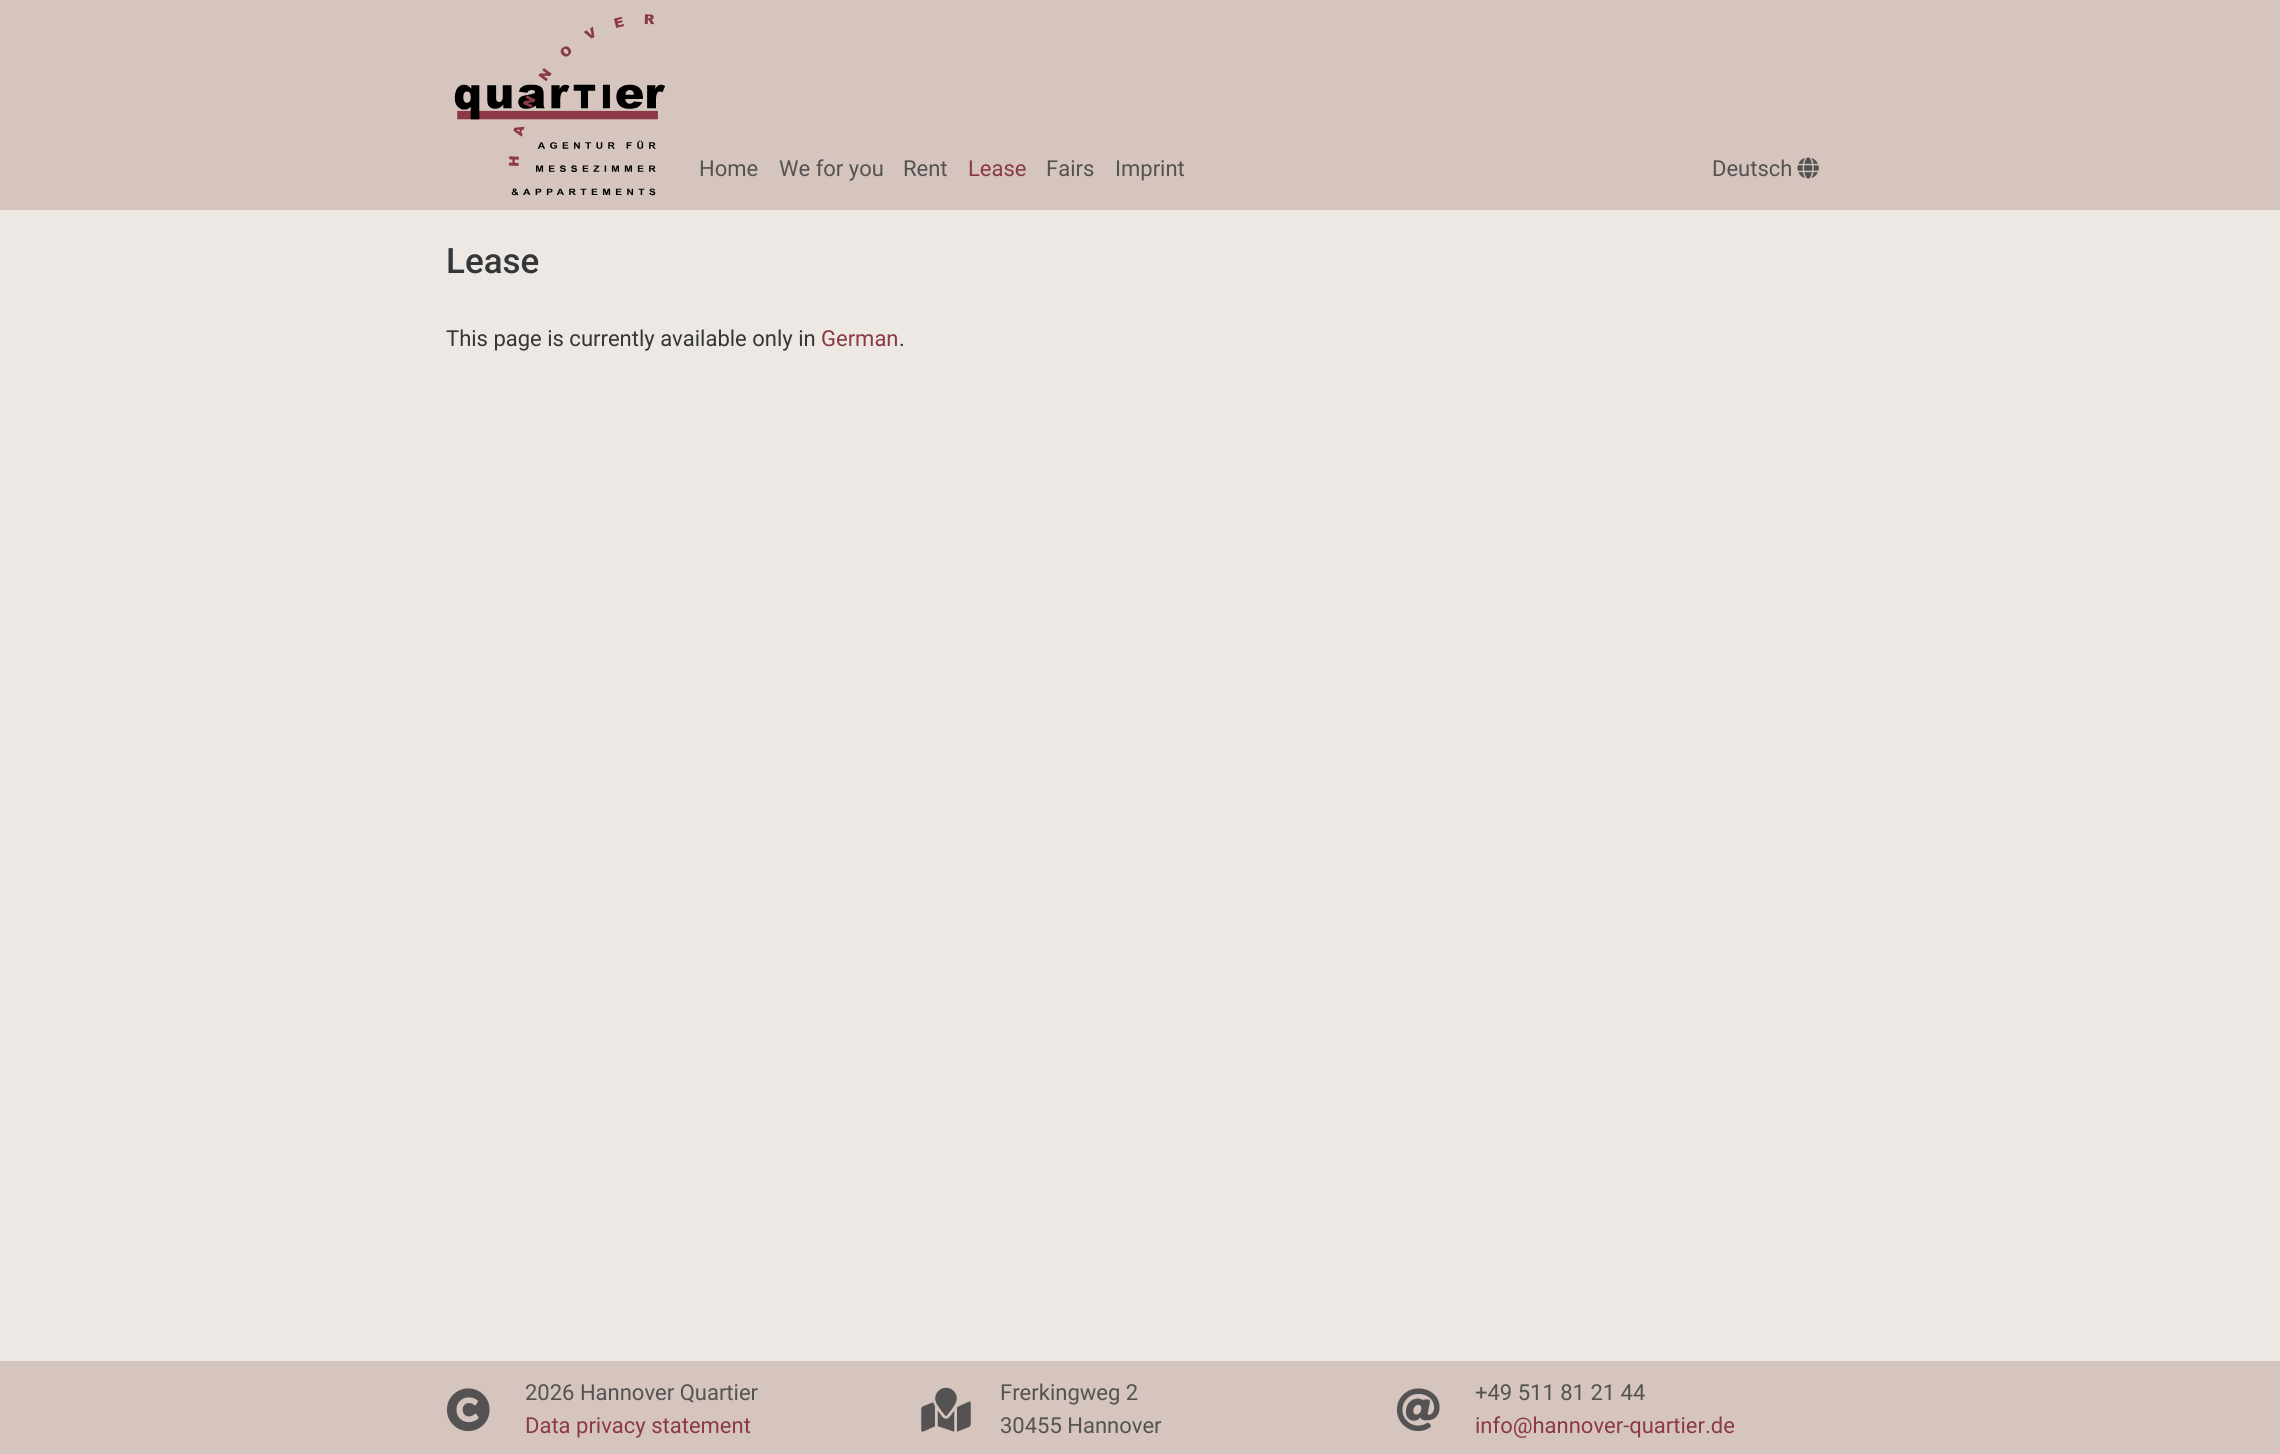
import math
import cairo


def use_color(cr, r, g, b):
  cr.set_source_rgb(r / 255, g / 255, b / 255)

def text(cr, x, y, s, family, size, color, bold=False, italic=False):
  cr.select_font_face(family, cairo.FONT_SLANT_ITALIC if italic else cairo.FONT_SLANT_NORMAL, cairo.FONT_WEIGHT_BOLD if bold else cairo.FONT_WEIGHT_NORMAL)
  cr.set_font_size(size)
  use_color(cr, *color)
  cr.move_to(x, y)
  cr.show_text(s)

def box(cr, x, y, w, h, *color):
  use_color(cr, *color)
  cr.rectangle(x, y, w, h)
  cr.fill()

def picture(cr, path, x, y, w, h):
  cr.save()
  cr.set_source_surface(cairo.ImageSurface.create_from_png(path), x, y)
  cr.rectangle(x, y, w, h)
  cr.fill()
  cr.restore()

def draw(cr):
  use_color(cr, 237, 232, 227)
  cr.paint()
  box(cr, 0, 0, 2280, 210, 213, 197, 190)
  picture(cr, "img_01.png", 454, 14, 212, 182)
  picture(cr, "img_02.png", 1797, 157, 22, 22)
  box(cr, 0, 1361, 2280, 93, 213, 197, 190)
  picture(cr, "img_03.png", 446, 1388, 44, 44)
  picture(cr, "img_04.png", 921, 1387, 50, 45)
  picture(cr, "img_05.png", 1396, 1388, 44, 44)
  text(cr, 699, 176, "Home", "Roboto", 22, (84, 83, 83))
  text(cr, 779, 176, "We for you", "Roboto", 22, (84, 83, 83))
  text(cr, 903, 176, "Rent", "Roboto", 22, (84, 83, 83))
  text(cr, 968, 176, "Lease", "Roboto", 22, (140, 57, 70))
  text(cr, 1046, 176, "Fairs", "Roboto", 22, (84, 83, 83))
  text(cr, 1115, 176, "Imprint", "Roboto", 22, (84, 83, 83))
  text(cr, 1712, 176, "Deutsch", "Roboto", 22, (84, 83, 83))
  text(cr, 446, 273, "Lease", "Roboto Medium", 35, (52, 54, 56))
  text(cr, 446, 346, "This page is currently available only in", "Roboto", 22, (52, 54, 56))
  text(cr, 821, 346, "German", "Roboto", 22, (140, 57, 70))
  text(cr, 899, 346, ".", "Roboto", 22, (52, 54, 56))
  text(cr, 525, 1400, "2026 Hannover Quartier", "Roboto", 22, (84, 83, 83))
  text(cr, 525, 1433, "Data privacy statement", "Roboto", 22, (140, 57, 70))
  text(cr, 1000, 1400, "Frerkingweg 2", "Roboto", 22, (84, 83, 83))
  text(cr, 1000, 1433, "30455 Hannover", "Roboto", 22, (84, 83, 83))
  text(cr, 1475, 1400, "+49 511 81 21 44", "Roboto", 22, (84, 83, 83))
  text(cr, 1475, 1433, "info@hannover-quartier.de", "Roboto", 22, (140, 57, 70))


surface = cairo.ImageSurface(cairo.FORMAT_RGB24, 2280, 1454)
cr = cairo.Context(surface)
options = cairo.FontOptions()
options.set_hint_metrics(cairo.HINT_METRICS_OFF)
options.set_hint_style(cairo.HINT_STYLE_NONE)
cr.set_font_options(options)
cr.set_miter_limit(4)
draw(cr)
surface.write_to_png("out.png")
